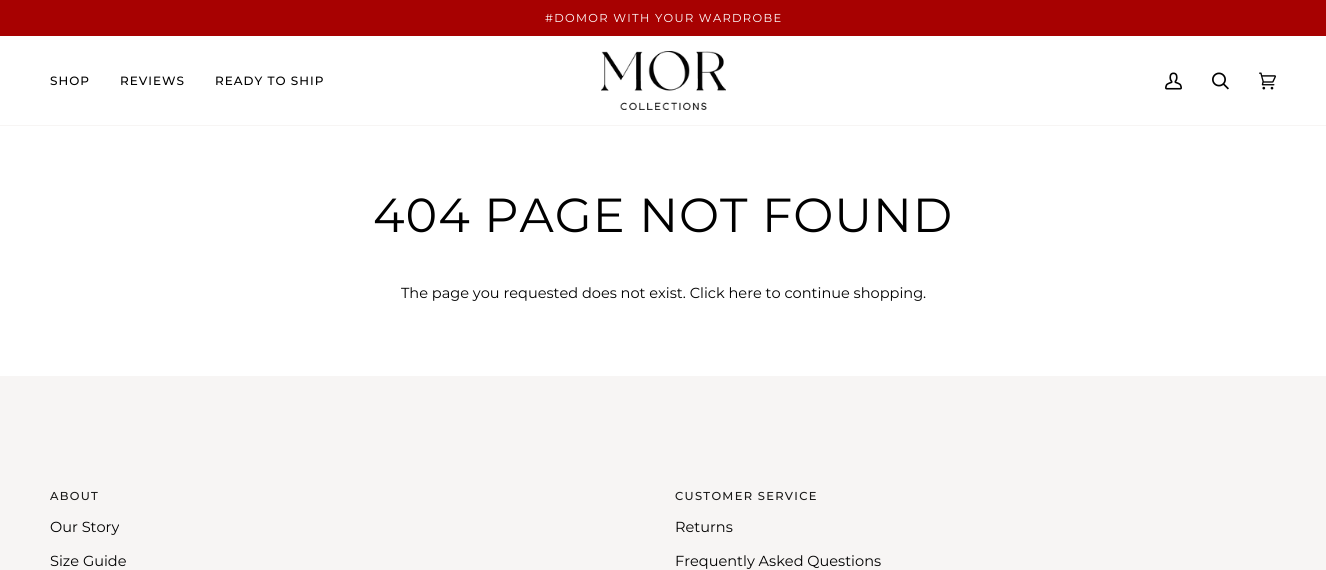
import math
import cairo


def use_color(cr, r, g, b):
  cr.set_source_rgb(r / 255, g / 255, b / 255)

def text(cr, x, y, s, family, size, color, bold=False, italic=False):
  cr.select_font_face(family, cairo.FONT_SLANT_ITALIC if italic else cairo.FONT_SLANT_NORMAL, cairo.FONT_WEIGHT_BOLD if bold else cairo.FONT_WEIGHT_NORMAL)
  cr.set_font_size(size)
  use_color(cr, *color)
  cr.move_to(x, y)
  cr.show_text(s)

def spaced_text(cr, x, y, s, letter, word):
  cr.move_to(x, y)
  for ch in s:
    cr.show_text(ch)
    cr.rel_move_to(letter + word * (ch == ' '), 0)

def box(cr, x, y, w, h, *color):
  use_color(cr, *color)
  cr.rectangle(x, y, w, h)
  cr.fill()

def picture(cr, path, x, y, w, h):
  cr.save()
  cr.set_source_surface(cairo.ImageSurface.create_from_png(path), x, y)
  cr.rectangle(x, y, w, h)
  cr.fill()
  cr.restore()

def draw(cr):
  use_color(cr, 255, 255, 255)
  cr.paint()
  box(cr, 0, 0, 1326, 36, 167, 1, 1)
  box(cr, 0, 125, 1326, 1, 247, 245, 244)
  picture(cr, "img_01.png", 601, 51, 125, 59)
  picture(cr, "img_02.png", 1165, 72, 17, 18)
  picture(cr, "img_03.png", 1212, 72, 17, 18)
  picture(cr, "img_04.png", 1259, 72, 17, 18)
  box(cr, 0, 376, 1326, 194, 247, 245, 244)
  cr.select_font_face("Montserrat Thin")
  cr.set_font_size(11.5)
  use_color(cr, 255, 255, 255)
  spaced_text(cr, 545, 22, "#DOMOR WITH YOUR WARDROBE", 1.3, 0)
  cr.select_font_face("Montserrat Medium")
  cr.set_font_size(12)
  use_color(cr, 0, 0, 0)
  spaced_text(cr, 50, 85, "SHOP", 1, 0)
  spaced_text(cr, 120, 85, "REVIEWS", 1, 0)
  spaced_text(cr, 215, 85, "READY TO SHIP", 1, 0)
  cr.select_font_face("Montserrat Thin")
  cr.set_font_size(47.75)
  spaced_text(cr, 373, 232, "404 PAGE NOT FOUND", 1, 0)
  text(cr, 401, 298, "The page you requested does not exist. Click here to continue shopping.", "Montserrat Thin", 14.55, (0, 0, 0))
  cr.select_font_face("Montserrat Medium")
  cr.set_font_size(11.5)
  use_color(cr, 25, 25, 24)
  spaced_text(cr, 50, 500, "ABOUT", 1.3, 0)
  text(cr, 50, 532, "Our Story", "Montserrat Thin", 14.55, (0, 0, 0))
  text(cr, 50, 566, "Size Guide", "Montserrat Thin", 14.55, (0, 0, 0))
  cr.select_font_face("Montserrat Medium")
  cr.set_font_size(11.5)
  use_color(cr, 25, 25, 24)
  spaced_text(cr, 675, 500, "CUSTOMER SERVICE", 1.3, 0)
  text(cr, 675, 532, "Returns", "Montserrat Thin", 14.55, (0, 0, 0))
  text(cr, 675, 566, "Frequently Asked Questions", "Montserrat Thin", 14.55, (0, 0, 0))


surface = cairo.ImageSurface(cairo.FORMAT_RGB24, 1326, 570)
cr = cairo.Context(surface)
options = cairo.FontOptions()
options.set_hint_metrics(cairo.HINT_METRICS_OFF)
options.set_hint_style(cairo.HINT_STYLE_NONE)
cr.set_font_options(options)
cr.set_miter_limit(4)
draw(cr)
surface.write_to_png("out.png")
